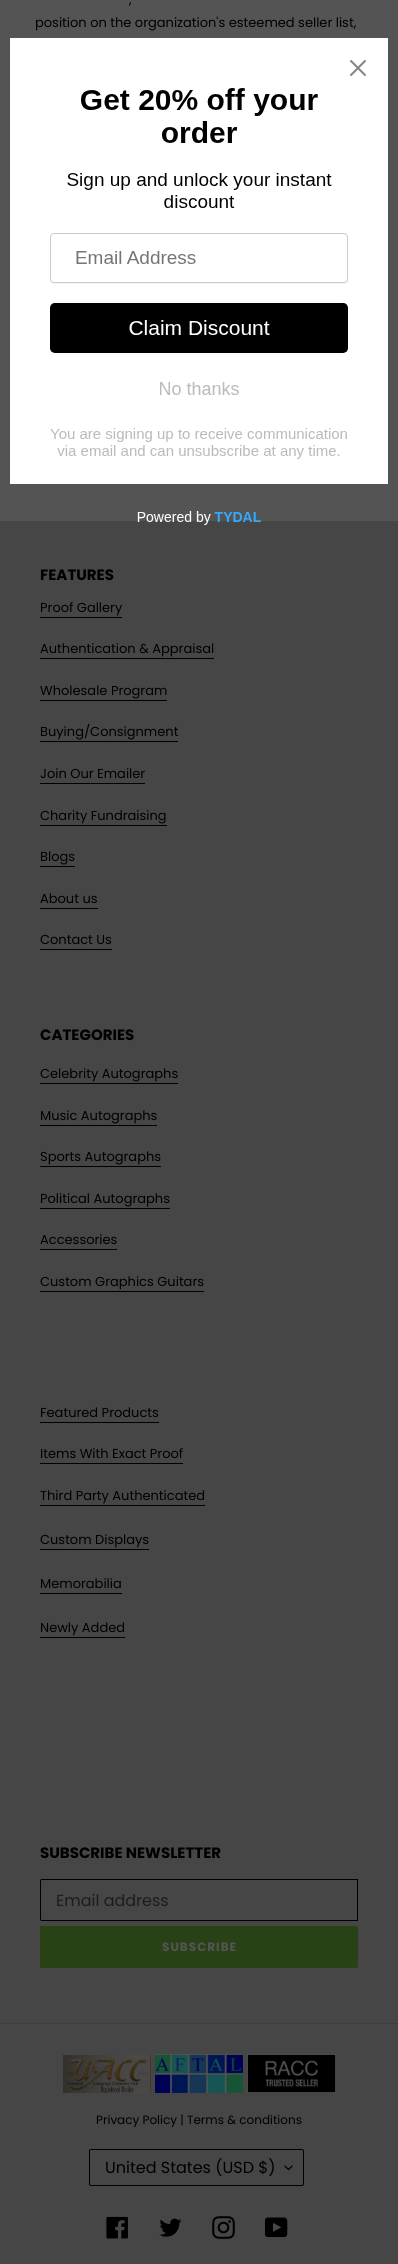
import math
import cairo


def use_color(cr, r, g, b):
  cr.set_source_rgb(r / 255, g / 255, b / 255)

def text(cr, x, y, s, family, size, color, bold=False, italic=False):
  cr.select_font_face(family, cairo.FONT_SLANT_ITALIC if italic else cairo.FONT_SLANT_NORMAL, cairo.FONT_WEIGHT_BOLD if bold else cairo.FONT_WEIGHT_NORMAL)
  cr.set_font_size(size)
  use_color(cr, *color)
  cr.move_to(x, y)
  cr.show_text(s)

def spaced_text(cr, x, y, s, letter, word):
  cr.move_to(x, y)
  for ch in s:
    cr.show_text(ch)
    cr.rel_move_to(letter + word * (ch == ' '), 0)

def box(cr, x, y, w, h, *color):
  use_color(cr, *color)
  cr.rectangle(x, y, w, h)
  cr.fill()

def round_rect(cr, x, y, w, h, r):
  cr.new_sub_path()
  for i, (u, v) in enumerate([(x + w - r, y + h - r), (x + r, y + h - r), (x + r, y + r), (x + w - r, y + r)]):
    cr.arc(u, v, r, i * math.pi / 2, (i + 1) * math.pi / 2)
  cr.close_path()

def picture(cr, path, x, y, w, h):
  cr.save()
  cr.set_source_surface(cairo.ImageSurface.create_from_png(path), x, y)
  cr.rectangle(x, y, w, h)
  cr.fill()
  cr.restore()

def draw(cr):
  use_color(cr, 255, 255, 255)
  cr.paint()
  box(cr, 0, 521, 398, 1743, 214, 212, 212)
  box(cr, 40, 617, 82, 1, 0, 0, 0)
  box(cr, 40, 658, 174, 1, 0, 0, 0)
  box(cr, 40, 700, 127, 1, 0, 0, 0)
  box(cr, 40, 741, 138, 1, 0, 0, 0)
  box(cr, 40, 783, 105, 1, 0, 0, 0)
  box(cr, 40, 825, 127, 1, 0, 0, 0)
  box(cr, 40, 866, 35, 1, 0, 0, 0)
  box(cr, 40, 908, 58, 1, 0, 0, 0)
  box(cr, 40, 949, 72, 1, 0, 0, 0)
  box(cr, 40, 1083, 138, 1, 0, 0, 0)
  box(cr, 40, 1125, 117, 1, 0, 0, 0)
  box(cr, 40, 1166, 121, 1, 0, 0, 0)
  box(cr, 40, 1208, 130, 1, 0, 0, 0)
  box(cr, 40, 1249, 77, 1, 0, 0, 0)
  box(cr, 40, 1291, 164, 1, 0, 0, 0)
  box(cr, 40, 1422, 119, 1, 0, 0, 0)
  box(cr, 40, 1463, 143, 1, 0, 0, 0)
  box(cr, 40, 1505, 165, 1, 0, 0, 0)
  box(cr, 40, 1549, 109, 1, 0, 0, 0)
  box(cr, 40, 1593, 82, 1, 0, 0, 0)
  box(cr, 40, 1637, 85, 1, 0, 0, 0)
  cr.new_path()
  cr.move_to(42, 1879.5)
  cr.line_to(357.5, 1879.5)
  cr.line_to(357.5, 1920.5)
  cr.line_to(42, 1920.5)
  cr.curve_to(41, 1920.5, 40.5, 1920, 40.5, 1919)
  cr.line_to(40.5, 1881)
  cr.curve_to(40.5, 1880, 41, 1879.5, 42, 1879.5)
  cr.close_path()
  cr.set_line_width(1)
  cr.stroke()
  use_color(cr, 122, 201, 67)
  cr.new_path()
  cr.move_to(40, 1926)
  cr.line_to(356, 1926)
  cr.curve_to(357, 1926, 358, 1927, 358, 1928)
  cr.line_to(358, 1966)
  cr.curve_to(358, 1967, 357, 1968, 356, 1968)
  cr.line_to(40, 1968)
  cr.close_path()
  cr.fill()
  box(cr, 0, 2023, 398, 1, 189, 186, 186)
  picture(cr, "img_02.png", 63, 2055, 88, 38)
  picture(cr, "img_03.png", 155, 2054, 88, 39)
  picture(cr, "img_04.png", 247, 2054, 89, 39)
  picture(cr, "img_05.png", 284, 2165, 9, 6)
  round_rect(cr, 89.5, 2149.5, 214, 36, 1.5)
  use_color(cr, 0, 0, 0)
  cr.stroke()
  picture(cr, "img_06.png", 106, 2216, 22, 23)
  picture(cr, "img_07.png", 159, 2218, 23, 19)
  picture(cr, "img_08.png", 212, 2216, 23, 23)
  picture(cr, "img_09.png", 265, 2217, 23, 21)
  text(cr, 129, 4, ",", "Poppins", 13, (0, 0, 0))
  text(cr, 35, 27, "position on the organization's esteemed seller list,", "Poppins", 13, (0, 0, 0))
  text(cr, 40, 580, "FEATURES", "Poppins", 15, (0, 0, 0), bold=True)
  text(cr, 40, 612, "Proof Gallery", "Poppins", 13, (0, 0, 0))
  text(cr, 40, 653, "Authentication & Appraisal", "Poppins", 13, (0, 0, 0))
  text(cr, 40, 695, "Wholesale Program", "Poppins", 13, (0, 0, 0))
  text(cr, 40, 736, "Buying/Consignment", "Poppins", 13, (0, 0, 0))
  text(cr, 40, 778, "Join Our Emailer", "Poppins", 13, (0, 0, 0))
  text(cr, 40, 820, "Charity Fundraising", "Poppins", 13, (0, 0, 0))
  text(cr, 40, 861, "Blogs", "Poppins", 13, (0, 0, 0))
  text(cr, 40, 903, "About us", "Poppins", 13, (0, 0, 0))
  text(cr, 40, 944, "Contact Us", "Poppins", 13, (0, 0, 0))
  text(cr, 40, 1040, "CATEGORIES", "Poppins", 15, (0, 0, 0), bold=True)
  text(cr, 40, 1078, "Celebrity Autographs", "Poppins", 13, (0, 0, 0))
  text(cr, 40, 1120, "Music Autographs", "Poppins", 13, (0, 0, 0))
  text(cr, 40, 1161, "Sports Autographs", "Poppins", 13, (0, 0, 0))
  text(cr, 40, 1203, "Political Autographs", "Poppins", 13, (0, 0, 0))
  text(cr, 40, 1244, "Accessories", "Poppins", 13, (0, 0, 0))
  text(cr, 40, 1286, "Custom Graphics Guitars", "Poppins", 13, (0, 0, 0))
  text(cr, 40, 1417, "Featured Products", "Poppins", 13, (0, 0, 0))
  text(cr, 40, 1458, "Items With Exact Proof", "Poppins", 13, (0, 0, 0))
  text(cr, 40, 1500, "Third Party Authenticated", "Poppins", 13, (0, 0, 0))
  text(cr, 40, 1544, "Custom Displays", "Poppins", 13, (0, 0, 0))
  text(cr, 40, 1588, "Memorabilia", "Poppins", 13, (0, 0, 0))
  text(cr, 40, 1632, "Newly Added", "Poppins", 13, (0, 0, 0))
  text(cr, 40, 1858, "SUBSCRIBE NEWSLETTER", "Poppins", 15, (0, 0, 0), bold=True)
  text(cr, 56, 1906, "Email address", "Poppins", 16, (86, 85, 85))
  cr.select_font_face("Poppins", cairo.FONT_SLANT_NORMAL, cairo.FONT_WEIGHT_BOLD)
  cr.set_font_size(12)
  use_color(cr, 255, 255, 255)
  spaced_text(cr, 162, 1951, "SUBSCRIBE", 1, 0)
  text(cr, 96, 2124, "Privacy Policy | Terms & conditions", "Poppins", 12, (0, 0, 0))
  text(cr, 105, 2173, "United States (USD $)", "Poppins", 16, (0, 0, 0))
  picture(cr, "img_01.png", 0, 0, 398, 2264)


surface = cairo.ImageSurface(cairo.FORMAT_RGB24, 398, 2264)
cr = cairo.Context(surface)
options = cairo.FontOptions()
options.set_hint_metrics(cairo.HINT_METRICS_OFF)
options.set_hint_style(cairo.HINT_STYLE_NONE)
cr.set_font_options(options)
cr.set_miter_limit(4)
draw(cr)
surface.write_to_png("out.png")
